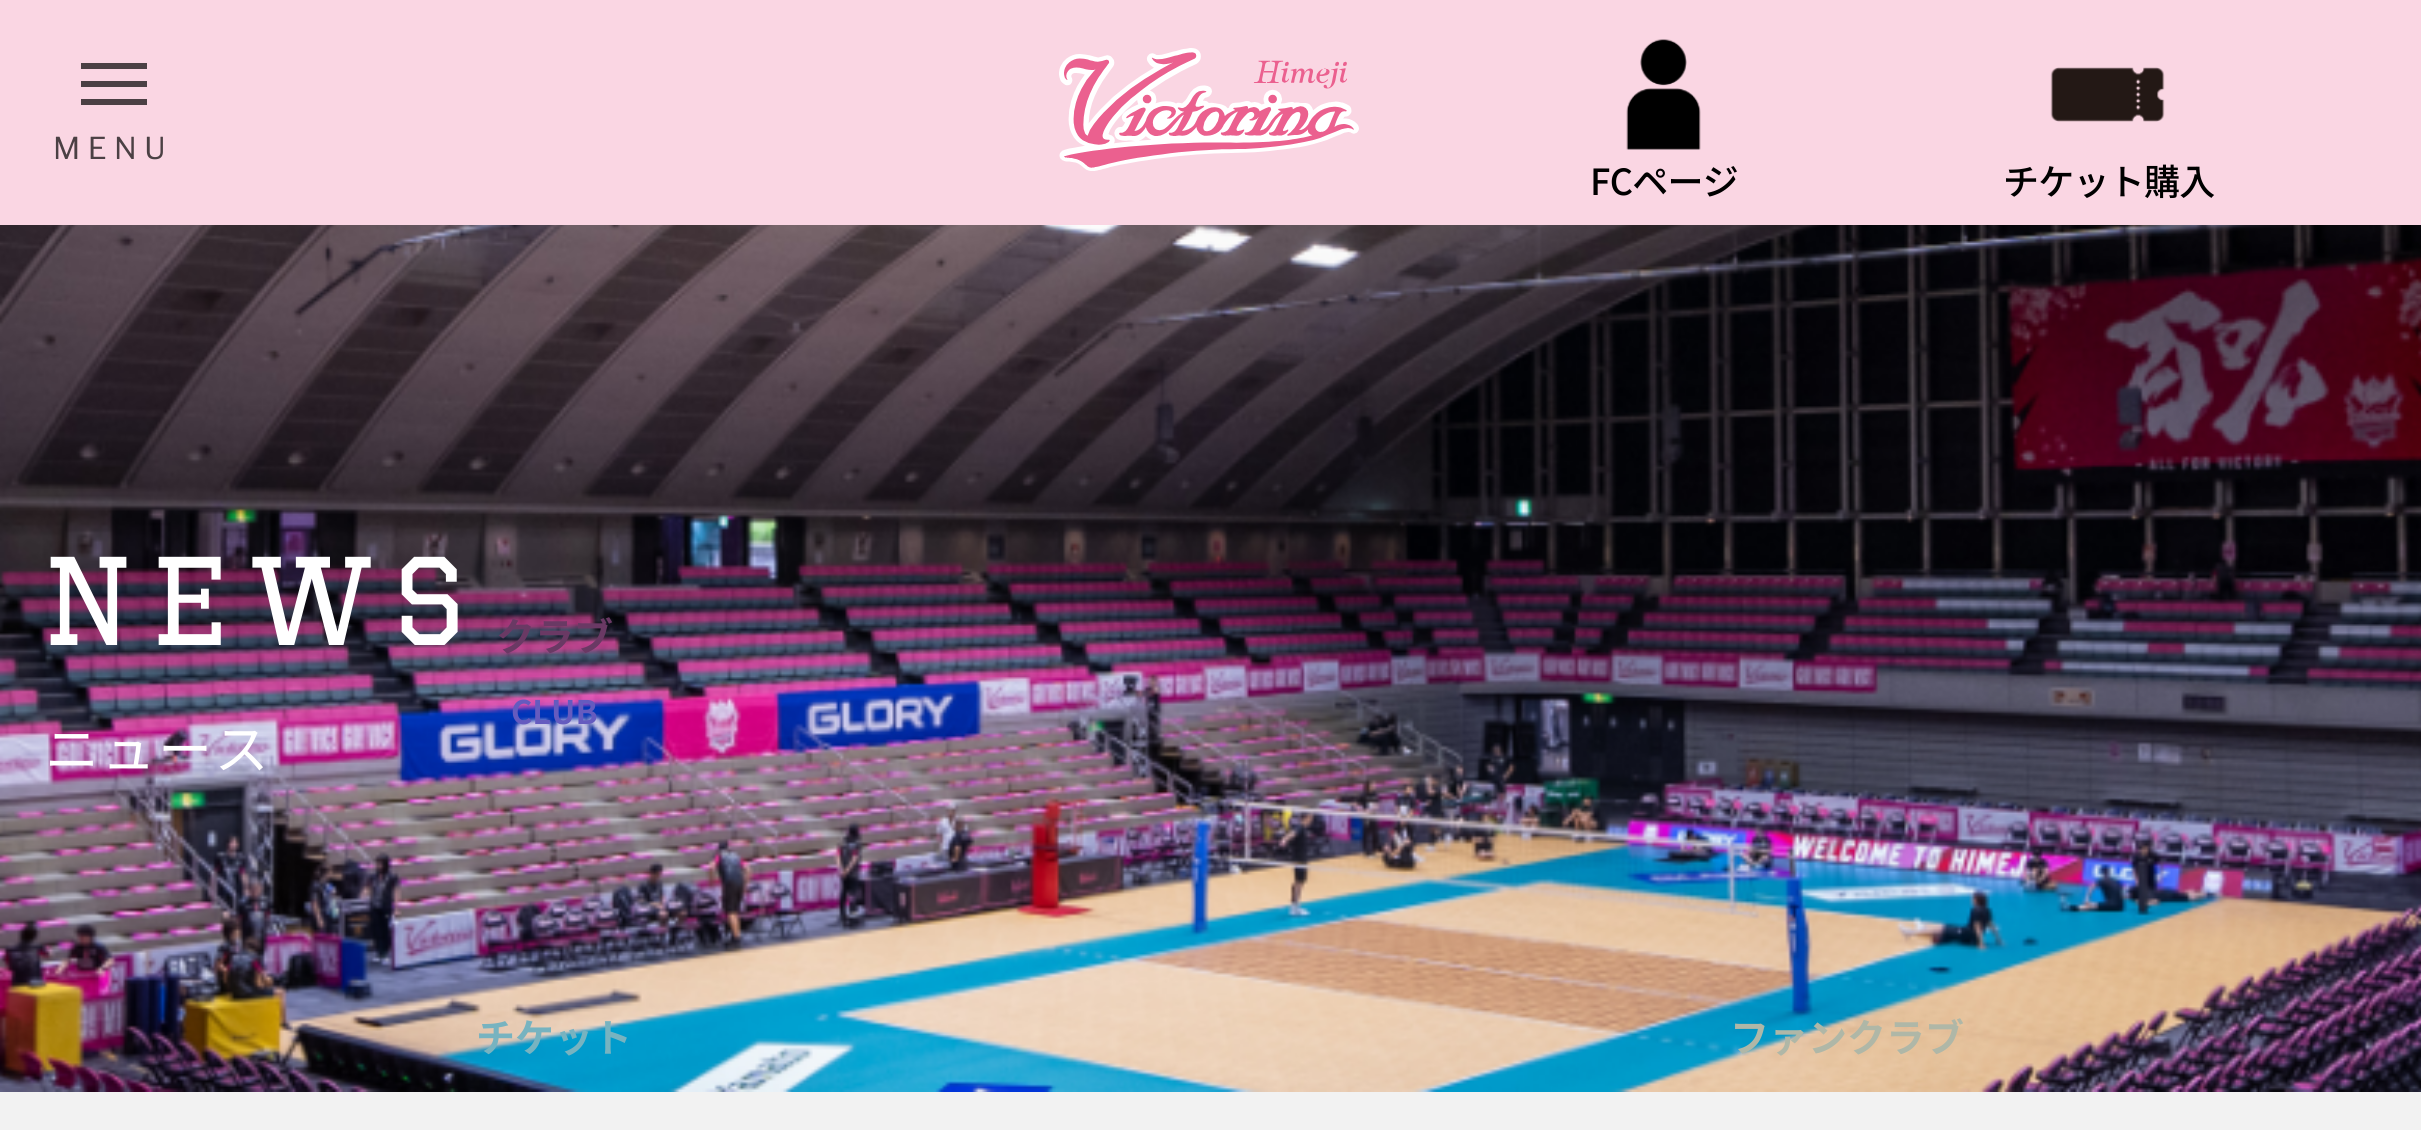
import math
import cairo


def use_color(cr, r, g, b):
  cr.set_source_rgb(r / 255, g / 255, b / 255)

def text(cr, x, y, s, family, size, color, bold=False, italic=False):
  cr.select_font_face(family, cairo.FONT_SLANT_ITALIC if italic else cairo.FONT_SLANT_NORMAL, cairo.FONT_WEIGHT_BOLD if bold else cairo.FONT_WEIGHT_NORMAL)
  cr.set_font_size(size)
  use_color(cr, *color)
  cr.move_to(x, y)
  cr.show_text(s)

def spaced_text(cr, x, y, s, letter, word):
  cr.move_to(x, y)
  for ch in s:
    cr.show_text(ch)
    cr.rel_move_to(letter + word * (ch == ' '), 0)

def box(cr, x, y, w, h, *color):
  use_color(cr, *color)
  cr.rectangle(x, y, w, h)
  cr.fill()

def picture(cr, path, x, y, w, h):
  cr.save()
  cr.set_source_surface(cairo.ImageSurface.create_from_png(path), x, y)
  cr.rectangle(x, y, w, h)
  cr.fill()
  cr.restore()

def draw(cr):
  use_color(cr, 255, 255, 255)
  cr.paint()
  box(cr, 0, 0, 2421, 225, 250, 214, 227)
  box(cr, 81, 63, 66, 6, 75, 64, 68)
  box(cr, 81, 81, 66, 6, 75, 64, 68)
  box(cr, 81, 99, 66, 6, 75, 64, 68)
  picture(cr, "img_01.png", 1059, 48, 300, 123)
  picture(cr, "img_02.png", 1626, 39, 75, 111)
  picture(cr, "img_03.png", 2050, 67, 115, 55)
  picture(cr, "img_04.png", 0, 225, 2421, 867)
  box(cr, 0, 1092, 2421, 38, 242, 242, 242)
  cr.select_font_face("Libre Franklin")
  cr.set_font_size(30)
  use_color(cr, 75, 64, 68)
  spaced_text(cr, 53, 159, "MENU", 7.5, 0)
  cr.select_font_face("Noto Sans JP Medium")
  cr.set_font_size(36)
  use_color(cr, 0, 0, 0)
  spaced_text(cr, 1590, 195, "FCページ", -0.75, 0)
  spaced_text(cr, 2003, 195, "チケット購入", -0.75, 0)
  text(cr, 496, 651, "クラブ", "Noto Sans JP", 39, (106, 57, 100), bold=True)
  text(cr, 511, 724, "CLUB", "Noto Sans JP", 32.5, (101, 91, 191), bold=True)
  text(cr, 476, 1052, "チケット", "Noto Sans JP", 39, (119, 179, 192), bold=True)
  text(cr, 1730, 1052, "ファンクラブ", "Noto Sans JP", 39, (175, 183, 167), bold=True)
  cr.select_font_face("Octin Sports")
  cr.set_font_size(126)
  use_color(cr, 255, 255, 255)
  spaced_text(cr, 45, 645, "NEWS", 24, 0)
  cr.select_font_face("Noto Sans JP")
  cr.set_font_size(54)
  spaced_text(cr, 45, 769, "ニュース", 2.5, 0)


surface = cairo.ImageSurface(cairo.FORMAT_RGB24, 2421, 1130)
cr = cairo.Context(surface)
options = cairo.FontOptions()
options.set_hint_metrics(cairo.HINT_METRICS_OFF)
options.set_hint_style(cairo.HINT_STYLE_NONE)
cr.set_font_options(options)
cr.set_miter_limit(4)
draw(cr)
surface.write_to_png("out.png")
